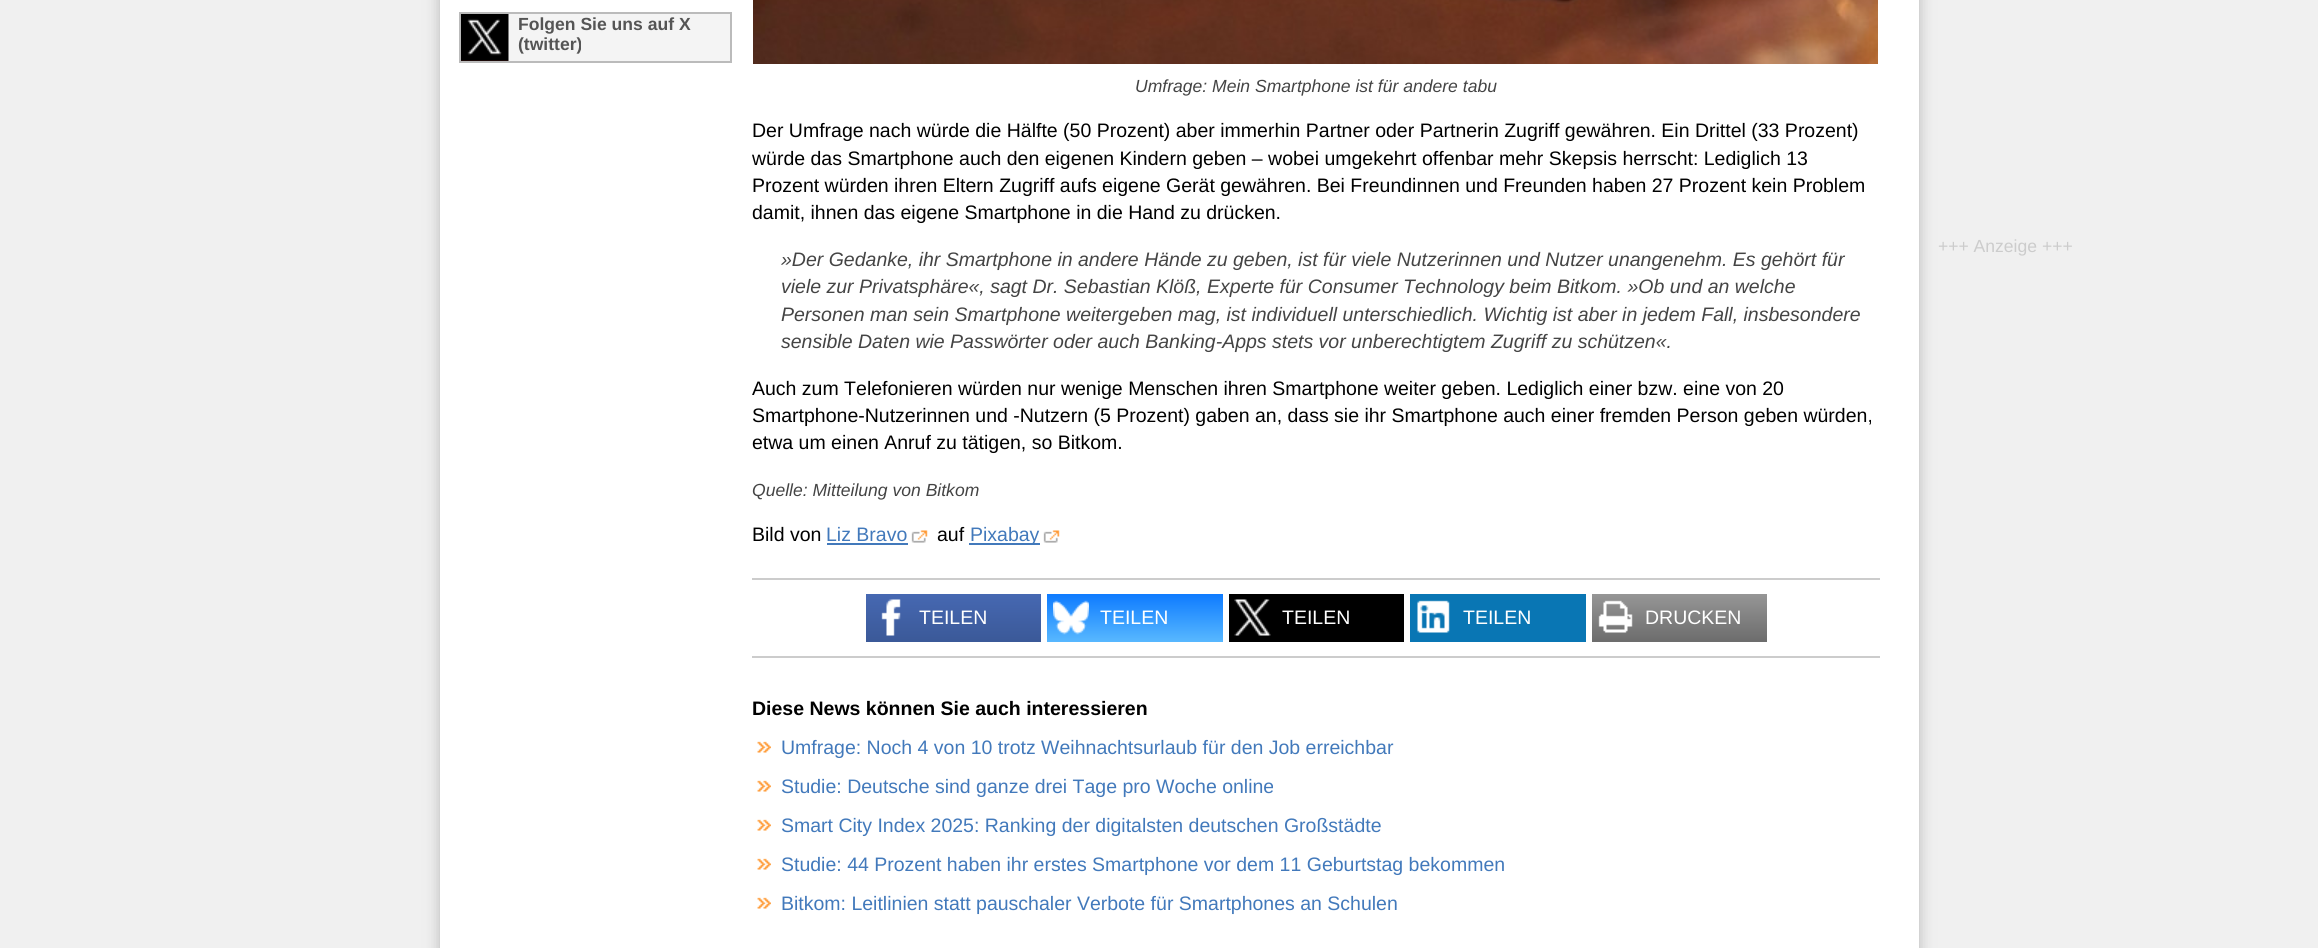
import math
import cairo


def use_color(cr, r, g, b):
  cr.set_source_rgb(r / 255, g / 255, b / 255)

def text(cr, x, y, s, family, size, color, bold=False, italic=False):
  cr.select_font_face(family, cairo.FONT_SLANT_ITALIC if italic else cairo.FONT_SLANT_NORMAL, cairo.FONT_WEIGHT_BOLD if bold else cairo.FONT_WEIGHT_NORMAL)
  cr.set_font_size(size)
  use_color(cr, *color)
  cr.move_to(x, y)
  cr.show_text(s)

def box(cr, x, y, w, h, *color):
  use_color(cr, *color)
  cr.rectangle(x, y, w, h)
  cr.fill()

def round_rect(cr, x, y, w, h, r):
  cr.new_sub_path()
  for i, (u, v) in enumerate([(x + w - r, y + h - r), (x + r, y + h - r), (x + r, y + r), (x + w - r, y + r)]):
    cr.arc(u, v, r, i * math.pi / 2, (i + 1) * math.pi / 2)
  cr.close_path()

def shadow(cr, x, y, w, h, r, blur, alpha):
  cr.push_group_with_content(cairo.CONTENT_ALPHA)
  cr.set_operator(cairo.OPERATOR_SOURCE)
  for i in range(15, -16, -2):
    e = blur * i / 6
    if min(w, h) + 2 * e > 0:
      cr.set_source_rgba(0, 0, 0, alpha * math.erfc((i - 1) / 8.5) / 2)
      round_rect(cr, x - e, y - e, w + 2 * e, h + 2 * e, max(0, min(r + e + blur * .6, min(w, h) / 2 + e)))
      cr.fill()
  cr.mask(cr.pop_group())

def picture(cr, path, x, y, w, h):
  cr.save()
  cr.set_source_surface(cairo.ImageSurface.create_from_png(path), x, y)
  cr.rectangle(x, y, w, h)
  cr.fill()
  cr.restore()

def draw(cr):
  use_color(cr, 240, 240, 240)
  cr.paint()
  use_color(cr, 125, 125, 125)
  shadow(cr, 440, -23, 1479, 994, 0, 7.5, 0.5)
  box(cr, 440, 0, 1479, 948, 255, 255, 255)
  box(cr, 508, 14, 222, 47, 244, 244, 244)
  picture(cr, "img_01.png", 461, 14, 48, 47)
  cr.rectangle(460, 13, 271, 49)
  use_color(cr, 187, 187, 187)
  cr.stroke()
  picture(cr, "img_02.png", 753, 0, 1125, 64)
  box(cr, 827, 543, 81, 2, 66, 121, 187)
  picture(cr, "img_03.png", 911, 530, 17, 13)
  box(cr, 969, 543, 71, 2, 66, 121, 187)
  picture(cr, "img_03.png", 1043, 530, 17, 13)
  box(cr, 752, 578, 1128, 2, 204, 204, 204)
  box(cr, 752, 656, 1128, 2, 204, 204, 204)
  gradient = cairo.LinearGradient(953, 594, 953, 642)
  gradient.add_color_stop_rgba(0, 0.275, 0.408, 0.698, 1)
  gradient.add_color_stop_rgba(1, 0.231, 0.349, 0.596, 1)
  cr.set_source(gradient)
  cr.rectangle(866, 594, 175, 48)
  cr.fill()
  picture(cr, "img_04.png", 881, 599, 20, 37)
  gradient = cairo.LinearGradient(1135, 594, 1135, 642)
  gradient.add_color_stop_rgba(0, 0.055, 0.482, 1, 1)
  gradient.add_color_stop_rgba(1, 0.345, 0.722, 1, 1)
  cr.set_source(gradient)
  cr.rectangle(1047, 594, 176, 48)
  cr.fill()
  picture(cr, "img_05.png", 1053, 600, 36, 35)
  box(cr, 1229, 594, 175, 48, 0, 0, 0)
  picture(cr, "img_06.png", 1234, 599, 37, 37)
  box(cr, 1410, 594, 176, 48, 9, 118, 180)
  picture(cr, "img_07.png", 1417, 600, 33, 33)
  gradient = cairo.LinearGradient(1679, 594, 1679, 642)
  gradient.add_color_stop_rgba(0, 0.588, 0.588, 0.588, 1)
  gradient.add_color_stop_rgba(1, 0.424, 0.424, 0.424, 1)
  cr.set_source(gradient)
  cr.rectangle(1592, 594, 175, 48)
  cr.fill()
  picture(cr, "img_08.png", 1598, 600, 35, 33)
  picture(cr, "img_09.png", 757, 741, 14, 12)
  picture(cr, "img_09.png", 757, 780, 14, 12)
  picture(cr, "img_09.png", 757, 819, 14, 12)
  picture(cr, "img_09.png", 757, 858, 14, 12)
  picture(cr, "img_09.png", 757, 897, 14, 12)
  text(cr, 518, 30, "Folgen Sie uns auf X", "Liberation Sans", 17.55, (85, 85, 85), bold=True)
  text(cr, 518, 50, "(twitter)", "Liberation Sans", 17.55, (85, 85, 85), bold=True)
  text(cr, 1135, 92, "Umfrage: Mein Smartphone ist für andere tabu", "Liberation Sans", 17.55, (68, 68, 68), italic=True)
  text(cr, 752, 137, "Der Umfrage nach würde die Hälfte (50 Prozent) aber immerhin Partner oder Partnerin Zugriff gewähren. Ein Drittel (33 Prozent)", "Liberation Sans", 19.5, (0, 0, 0))
  text(cr, 752, 165, "würde das Smartphone auch den eigenen Kindern geben – wobei umgekehrt offenbar mehr Skepsis herrscht: Lediglich 13", "Liberation Sans", 19.5, (0, 0, 0))
  text(cr, 752, 192, "Prozent würden ihren Eltern Zugriff aufs eigene Gerät gewähren. Bei Freundinnen und Freunden haben 27 Prozent kein Problem", "Liberation Sans", 19.5, (0, 0, 0))
  text(cr, 752, 219, "damit, ihnen das eigene Smartphone in die Hand zu drücken.", "Liberation Sans", 19.5, (0, 0, 0))
  text(cr, 781, 266, "»Der Gedanke, ihr Smartphone in andere Hände zu geben, ist für viele Nutzerinnen und Nutzer unangenehm. Es gehört für", "Liberation Sans", 19.5, (68, 68, 68), italic=True)
  text(cr, 781, 293, "viele zur Privatsphäre«, sagt Dr. Sebastian Klöß, Experte für Consumer Technology beim Bitkom. »Ob und an welche", "Liberation Sans", 19.5, (68, 68, 68), italic=True)
  text(cr, 781, 321, "Personen man sein Smartphone weitergeben mag, ist individuell unterschiedlich. Wichtig ist aber in jedem Fall, insbesondere", "Liberation Sans", 19.5, (68, 68, 68), italic=True)
  text(cr, 781, 348, "sensible Daten wie Passwörter oder auch Banking-Apps stets vor unberechtigtem Zugriff zu schützen«.", "Liberation Sans", 19.5, (68, 68, 68), italic=True)
  text(cr, 752, 395, "Auch zum Telefonieren würden nur wenige Menschen ihren Smartphone weiter geben. Lediglich einer bzw. eine von 20", "Liberation Sans", 19.5, (0, 0, 0))
  text(cr, 752, 422, "Smartphone-Nutzerinnen und -Nutzern (5 Prozent) gaben an, dass sie ihr Smartphone auch einer fremden Person geben würden,", "Liberation Sans", 19.5, (0, 0, 0))
  text(cr, 752, 449, "etwa um einen Anruf zu tätigen, so Bitkom.", "Liberation Sans", 19.5, (0, 0, 0))
  text(cr, 752, 496, "Quelle: Mitteilung von Bitkom", "Liberation Sans", 17.55, (68, 68, 68), italic=True)
  text(cr, 752, 541, "Bild von", "Liberation Sans", 19.5, (0, 0, 0))
  text(cr, 826, 541, "Liz Bravo", "Liberation Sans", 19.5, (66, 121, 187))
  text(cr, 937, 541, "auf", "Liberation Sans", 19.5, (0, 0, 0))
  text(cr, 970, 541, "Pixabay", "Liberation Sans", 19.5, (66, 121, 187))
  text(cr, 919, 624, "TEILEN", "Liberation Sans", 19.5, (255, 255, 255))
  text(cr, 1100, 624, "TEILEN", "Liberation Sans", 19.5, (255, 255, 255))
  text(cr, 1282, 624, "TEILEN", "Liberation Sans", 19.5, (255, 255, 255))
  text(cr, 1463, 624, "TEILEN", "Liberation Sans", 19.5, (255, 255, 255))
  text(cr, 1645, 624, "DRUCKEN", "Liberation Sans", 19.5, (255, 255, 255))
  text(cr, 752, 715, "Diese News können Sie auch interessieren", "Liberation Sans", 19.5, (0, 0, 0), bold=True)
  text(cr, 781, 754, "Umfrage: Noch 4 von 10 trotz Weihnachtsurlaub für den Job erreichbar", "Liberation Sans", 19.5, (66, 121, 187))
  text(cr, 781, 793, "Studie: Deutsche sind ganze drei Tage pro Woche online", "Liberation Sans", 19.5, (66, 121, 187))
  text(cr, 781, 832, "Smart City Index 2025: Ranking der digitalsten deutschen Großstädte", "Liberation Sans", 19.5, (66, 121, 187))
  text(cr, 781, 871, "Studie: 44 Prozent haben ihr erstes Smartphone vor dem 11 Geburtstag bekommen", "Liberation Sans", 19.5, (66, 121, 187))
  text(cr, 781, 910, "Bitkom: Leitlinien statt pauschaler Verbote für Smartphones an Schulen", "Liberation Sans", 19.5, (66, 121, 187))
  text(cr, 1938, 252, "+++ Anzeige +++", "Liberation Sans", 17.55, (204, 204, 204))


surface = cairo.ImageSurface(cairo.FORMAT_RGB24, 2318, 948)
cr = cairo.Context(surface)
options = cairo.FontOptions()
options.set_hint_metrics(cairo.HINT_METRICS_OFF)
options.set_hint_style(cairo.HINT_STYLE_NONE)
cr.set_font_options(options)
cr.set_miter_limit(4)
draw(cr)
surface.write_to_png("out.png")
